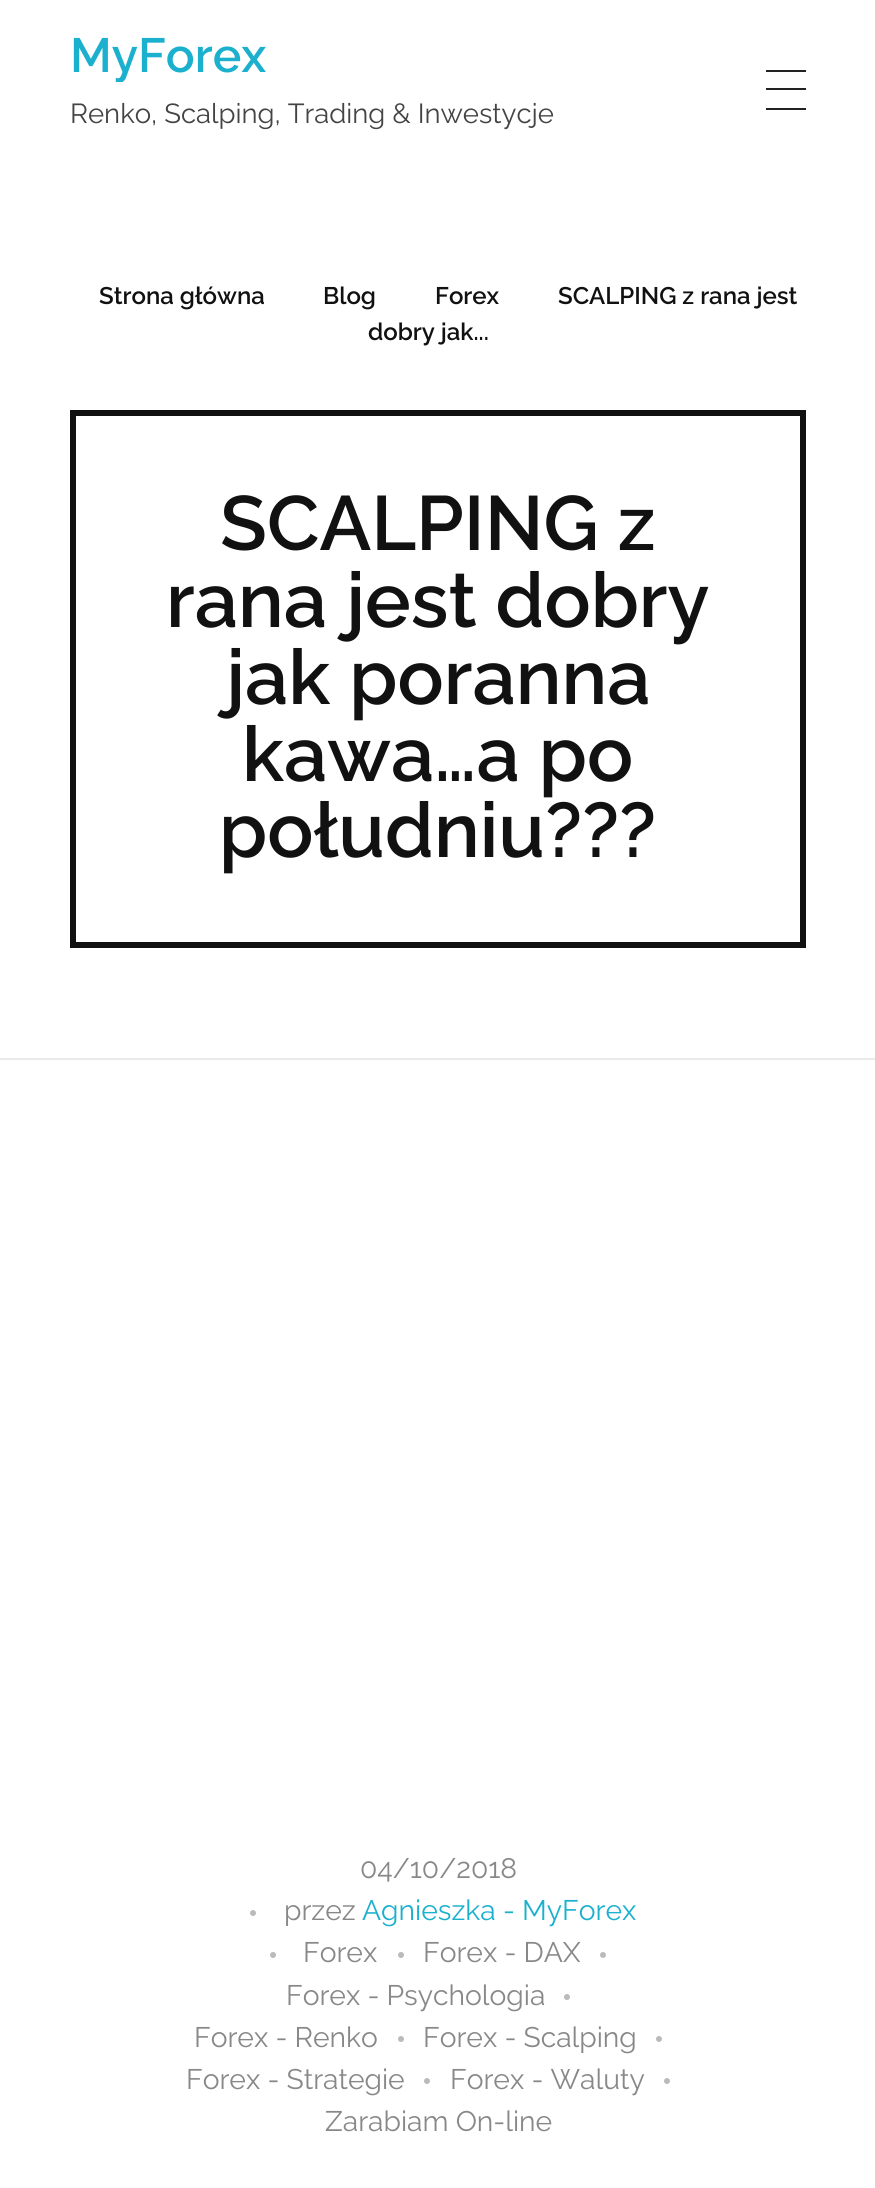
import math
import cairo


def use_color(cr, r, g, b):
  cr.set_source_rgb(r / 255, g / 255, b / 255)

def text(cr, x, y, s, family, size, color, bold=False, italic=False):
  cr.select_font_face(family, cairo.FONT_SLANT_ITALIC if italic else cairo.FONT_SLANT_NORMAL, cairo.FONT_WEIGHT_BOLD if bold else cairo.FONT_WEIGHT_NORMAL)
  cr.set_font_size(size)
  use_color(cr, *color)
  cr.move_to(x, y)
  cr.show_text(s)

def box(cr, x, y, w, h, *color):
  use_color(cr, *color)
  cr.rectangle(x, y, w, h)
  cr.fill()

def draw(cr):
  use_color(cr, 255, 255, 255)
  cr.paint()
  box(cr, 766, 70, 40, 2, 34, 34, 34)
  box(cr, 766, 88, 40, 2, 34, 34, 34)
  box(cr, 766, 108, 40, 2, 34, 34, 34)
  box(cr, 0, 1058, 875, 2, 234, 234, 234)
  cr.new_path()
  cr.move_to(73, 413)
  cr.line_to(803, 413)
  cr.line_to(803, 945)
  cr.line_to(73, 945)
  cr.close_path()
  use_color(cr, 17, 17, 17)
  cr.set_line_width(6)
  cr.stroke()
  use_color(cr, 187, 187, 187)
  cr.arc(253, 1913, 3, 0, 2 * math.pi)
  cr.fill()
  cr.arc(273, 1955, 3, 0, 2 * math.pi)
  cr.fill()
  cr.arc(401, 1955, 3, 0, 2 * math.pi)
  cr.fill()
  cr.arc(603, 1955, 3, 0, 2 * math.pi)
  cr.fill()
  cr.arc(567, 1997, 3, 0, 2 * math.pi)
  cr.fill()
  cr.arc(401, 2039, 3, 0, 2 * math.pi)
  cr.fill()
  cr.arc(659, 2039, 3, 0, 2 * math.pi)
  cr.fill()
  cr.arc(427, 2081, 3, 0, 2 * math.pi)
  cr.fill()
  cr.arc(667, 2081, 3, 0, 2 * math.pi)
  cr.fill()
  cr.save()
  cr.rectangle(70, 30, 484, 52)
  cr.clip()
  text(cr, 70, 72, "MyForex", "Raleway SemiBold", 48, (27, 176, 206))
  cr.restore()
  text(cr, 70, 123, "Renko, Scalping, Trading & Inwestycje", "Raleway", 27.5, (68, 68, 68))
  text(cr, 99, 304, "Strona główna", "Raleway SemiBold", 24, (17, 17, 17))
  text(cr, 323, 304, "Blog", "Raleway SemiBold", 24, (17, 17, 17))
  text(cr, 435, 304, "Forex", "Raleway SemiBold", 24, (17, 17, 17))
  text(cr, 558, 304, "SCALPING z rana jest", "Raleway SemiBold", 24, (17, 17, 17))
  text(cr, 368, 340, "dobry jak...", "Raleway SemiBold", 24, (17, 17, 17))
  text(cr, 220, 550, "SCALPING z", "Raleway SemiBold", 76.75, (17, 17, 17))
  text(cr, 166, 627, "rana jest dobry", "Raleway SemiBold", 76.75, (17, 17, 17))
  text(cr, 226, 704, "jak poranna", "Raleway SemiBold", 76.75, (17, 17, 17))
  text(cr, 242, 781, "kawa…a po", "Raleway SemiBold", 76.75, (17, 17, 17))
  text(cr, 219, 857, "południu???", "Raleway SemiBold", 76.75, (17, 17, 17))
  text(cr, 360, 1878, "04/10/2018", "Raleway", 28.25, (136, 136, 136))
  text(cr, 284, 1920, "przez", "Raleway", 28.25, (136, 136, 136))
  text(cr, 362, 1920, "Agnieszka - MyForex", "Raleway", 28.25, (27, 176, 206))
  text(cr, 303, 1962, "Forex", "Raleway", 28.25, (136, 136, 136))
  text(cr, 423, 1962, "Forex - DAX", "Raleway", 28.25, (136, 136, 136))
  text(cr, 286, 2005, "Forex - Psychologia", "Raleway", 28.25, (136, 136, 136))
  text(cr, 194, 2047, "Forex - Renko", "Raleway", 28.25, (136, 136, 136))
  text(cr, 423, 2047, "Forex - Scalping", "Raleway", 28.25, (136, 136, 136))
  text(cr, 186, 2089, "Forex - Strategie", "Raleway", 28.25, (136, 136, 136))
  text(cr, 450, 2089, "Forex - Waluty", "Raleway", 28.25, (136, 136, 136))
  text(cr, 325, 2131, "Zarabiam On-line", "Raleway", 28.25, (136, 136, 136))


surface = cairo.ImageSurface(cairo.FORMAT_RGB24, 875, 2188)
cr = cairo.Context(surface)
options = cairo.FontOptions()
options.set_hint_metrics(cairo.HINT_METRICS_OFF)
options.set_hint_style(cairo.HINT_STYLE_NONE)
cr.set_font_options(options)
cr.set_miter_limit(4)
draw(cr)
surface.write_to_png("out.png")
